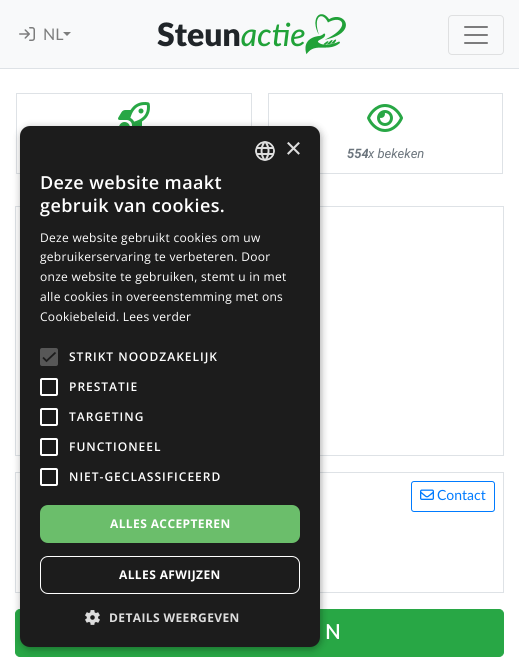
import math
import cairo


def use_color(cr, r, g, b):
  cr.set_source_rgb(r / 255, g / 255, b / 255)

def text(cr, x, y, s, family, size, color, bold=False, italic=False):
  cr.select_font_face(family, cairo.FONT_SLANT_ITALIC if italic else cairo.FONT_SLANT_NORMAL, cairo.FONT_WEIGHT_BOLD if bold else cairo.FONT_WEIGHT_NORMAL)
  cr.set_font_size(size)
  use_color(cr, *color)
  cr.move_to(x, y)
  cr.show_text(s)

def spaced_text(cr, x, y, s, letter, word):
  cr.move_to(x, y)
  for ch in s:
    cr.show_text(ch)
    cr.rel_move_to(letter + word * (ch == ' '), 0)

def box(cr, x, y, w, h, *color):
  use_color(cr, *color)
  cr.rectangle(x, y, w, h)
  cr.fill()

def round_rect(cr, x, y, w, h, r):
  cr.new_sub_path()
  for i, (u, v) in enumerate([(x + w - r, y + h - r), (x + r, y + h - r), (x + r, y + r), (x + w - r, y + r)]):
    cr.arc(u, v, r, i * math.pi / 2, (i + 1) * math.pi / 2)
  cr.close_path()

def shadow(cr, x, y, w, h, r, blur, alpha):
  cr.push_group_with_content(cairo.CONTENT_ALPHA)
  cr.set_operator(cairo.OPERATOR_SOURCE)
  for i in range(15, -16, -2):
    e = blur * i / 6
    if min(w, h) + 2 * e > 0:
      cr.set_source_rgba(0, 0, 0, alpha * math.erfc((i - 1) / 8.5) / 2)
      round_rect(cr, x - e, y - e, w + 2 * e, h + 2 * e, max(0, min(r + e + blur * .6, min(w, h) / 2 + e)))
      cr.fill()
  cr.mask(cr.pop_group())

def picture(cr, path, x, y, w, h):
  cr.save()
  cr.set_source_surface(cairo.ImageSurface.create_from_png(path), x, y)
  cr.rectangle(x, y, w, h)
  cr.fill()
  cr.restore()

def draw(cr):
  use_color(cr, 255, 255, 255)
  cr.paint()
  box(cr, 0, 0, 519, 68, 248, 249, 250)
  box(cr, 0, 68, 519, 1, 222, 226, 230)
  picture(cr, "img_01.png", 19, 27, 16, 14)
  use_color(cr, 124, 125, 125)
  cr.new_path()
  cr.move_to(63, 32)
  cr.line_to(71, 32)
  cr.line_to(67, 36)
  cr.close_path()
  cr.fill()
  picture(cr, "img_02.png", 157, 14, 189, 41)
  round_rect(cr, 448.5, 15.5, 55, 39, 3.5)
  use_color(cr, 223, 224, 225)
  cr.set_line_width(1)
  cr.stroke()
  picture(cr, "img_03.png", 464, 26, 24, 18)
  cr.rectangle(16.5, 93.5, 235, 80)
  use_color(cr, 222, 226, 230)
  cr.stroke()
  picture(cr, "img_06.png", 118, 102, 32, 24)
  cr.rectangle(268.5, 93.5, 234, 80)
  cr.stroke()
  cr.rectangle(15.5, 206.5, 488, 249)
  cr.stroke()
  cr.rectangle(15.5, 472.5, 488, 120)
  cr.stroke()
  use_color(cr, 40, 167, 69)
  round_rect(cr, 15.5, 609.5, 488, 47, 4.5)
  cr.fill_preserve()
  cr.stroke()
  use_color(cr, 0, 0, 0)
  shadow(cr, 21, 128, 300, 521, 10, 4, 0.35)
  use_color(cr, 28, 28, 28)
  round_rect(cr, 20, 126, 300, 521, 10)
  cr.fill()
  picture(cr, "img_04.png", 255, 141, 20, 20)
  use_color(cr, 87, 87, 87)
  round_rect(cr, 40, 348, 18, 18, 2)
  cr.fill()
  cr.new_path()
  cr.move_to(43, 357.5)
  cr.line_to(46.5, 361)
  cr.line_to(55.5, 352.5)
  use_color(cr, 28, 28, 28)
  cr.set_line_width(1.8)
  cr.stroke()
  round_rect(cr, 41, 379, 16, 16, 1)
  use_color(cr, 255, 255, 255)
  cr.set_line_width(2)
  cr.stroke()
  round_rect(cr, 41, 409, 16, 16, 1)
  cr.stroke()
  round_rect(cr, 41, 439, 16, 16, 1)
  cr.stroke()
  round_rect(cr, 41, 469, 16, 16, 1)
  cr.stroke()
  use_color(cr, 107, 190, 107)
  round_rect(cr, 40, 505, 260, 38, 8)
  cr.fill()
  round_rect(cr, 40.5, 556.5, 259, 37, 7.5)
  use_color(cr, 255, 255, 255)
  cr.set_line_width(1)
  cr.stroke()
  picture(cr, "img_05.png", 85, 610, 15, 15)
  picture(cr, "img_07.png", 367, 104, 36, 28)
  round_rect(cr, 411.5, 481.5, 83, 30, 2.5)
  use_color(cr, 0, 123, 255)
  cr.stroke()
  picture(cr, "img_08.png", 420, 489, 14, 11)
  text(cr, 43, 40, "NL", "Lato", 16, (124, 125, 125))
  text(cr, 285, 158, "×", "Liberation Sans", 29, (221, 221, 221))
  cr.select_font_face("Open Sans SemiBold")
  cr.set_font_size(18)
  use_color(cr, 255, 255, 255)
  spaced_text(cr, 40, 189, "Deze website maakt", 0.4, 0)
  spaced_text(cr, 40, 212, "gebruik van cookies.", 0.4, 0)
  cr.select_font_face("Open Sans")
  cr.set_font_size(12)
  spaced_text(cr, 40, 242, "Deze website gebruikt cookies om uw", 0.3, 0)
  spaced_text(cr, 40, 261, "gebruikerservaring te verbeteren. Door", 0.3, 0)
  spaced_text(cr, 40, 281, "onze website te gebruiken, stemt u in met", 0.3, 0)
  spaced_text(cr, 40, 301, "alle cookies in overeenstemming met ons", 0.3, 0)
  spaced_text(cr, 40, 321, "Cookiebeleid. Lees verder", 0.3, 0)
  cr.select_font_face("Open Sans SemiBold")
  spaced_text(cr, 69, 361, "STRIKT NOODZAKELIJK", 1, 0)
  spaced_text(cr, 69, 391, "PRESTATIE", 1, 0)
  spaced_text(cr, 69, 421, "TARGETING", 1, 0)
  spaced_text(cr, 69, 451, "FUNCTIONEEL", 1, 0)
  spaced_text(cr, 69, 481, "NIET-GECLASSIFICEERD", 1, 0)
  cr.select_font_face("Open Sans", cairo.FONT_SLANT_NORMAL, cairo.FONT_WEIGHT_BOLD)
  spaced_text(cr, 110, 528, "ALLES ACCEPTEREN", 0.4, 0)
  spaced_text(cr, 119, 579, "ALLES AFWIJZEN", 0.4, 0)
  use_color(cr, 221, 221, 221)
  spaced_text(cr, 109, 622, "DETAILS WEERGEVEN", 0.4, 0)
  text(cr, 347, 158, "554", "Roboto", 13, (108, 117, 125), bold=True, italic=True)
  text(cr, 368, 158, "x bekeken", "Roboto", 13, (108, 117, 125), italic=True)
  text(cr, 437, 500, "Contact", "Lato", 14, (0, 123, 255))
  text(cr, 325, 639, "N", "Lato", 20, (255, 255, 255), bold=True)


surface = cairo.ImageSurface(cairo.FORMAT_RGB24, 519, 667)
cr = cairo.Context(surface)
options = cairo.FontOptions()
options.set_hint_metrics(cairo.HINT_METRICS_OFF)
options.set_hint_style(cairo.HINT_STYLE_NONE)
cr.set_font_options(options)
cr.set_miter_limit(4)
draw(cr)
surface.write_to_png("out.png")
